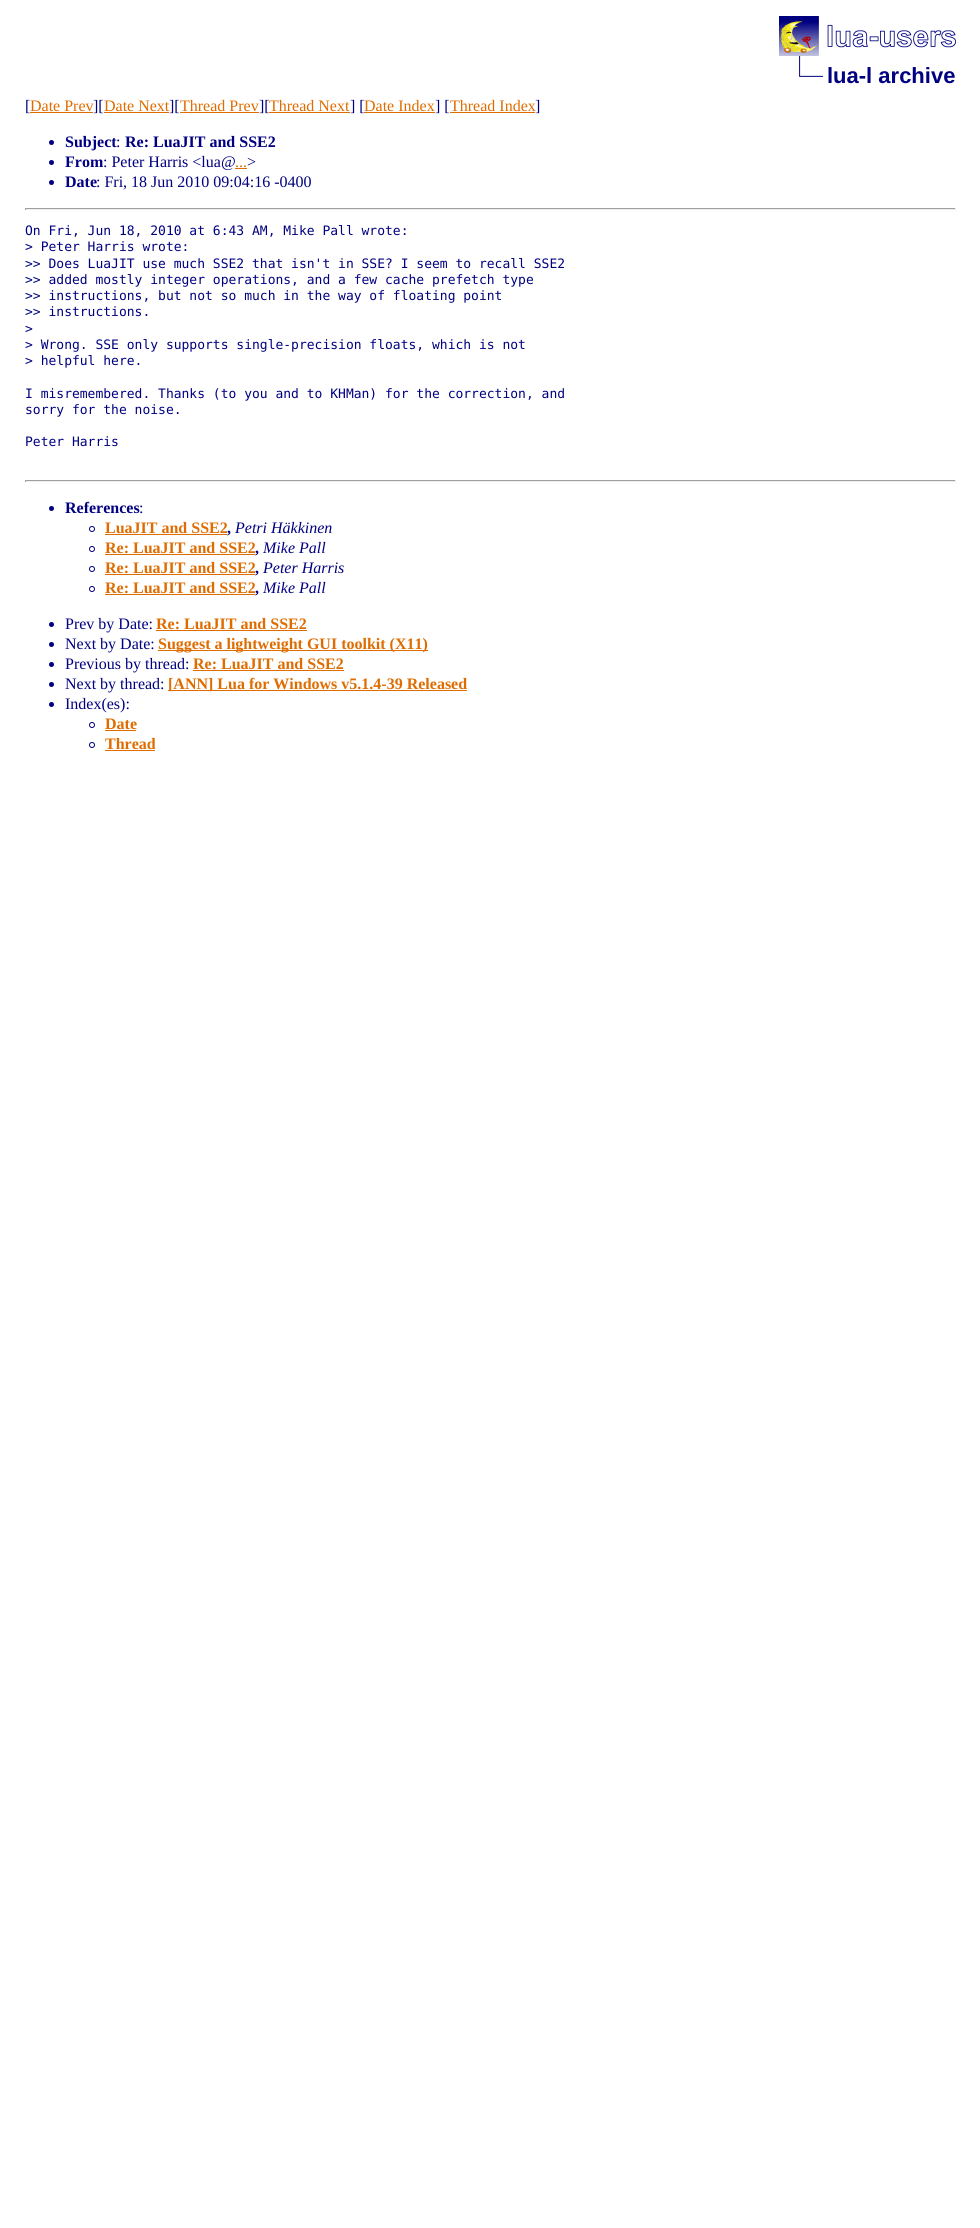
import math
import cairo


def use_color(cr, r, g, b):
  cr.set_source_rgb(r / 255, g / 255, b / 255)

def text(cr, x, y, s, family, size, color, bold=False, italic=False):
  cr.select_font_face(family, cairo.FONT_SLANT_ITALIC if italic else cairo.FONT_SLANT_NORMAL, cairo.FONT_WEIGHT_BOLD if bold else cairo.FONT_WEIGHT_NORMAL)
  cr.set_font_size(size)
  use_color(cr, *color)
  cr.move_to(x, y)
  cr.show_text(s)

def box(cr, x, y, w, h, *color):
  use_color(cr, *color)
  cr.rectangle(x, y, w, h)
  cr.fill()

def picture(cr, path, x, y, w, h):
  cr.save()
  cr.set_source_surface(cairo.ImageSurface.create_from_png(path), x, y)
  cr.rectangle(x, y, w, h)
  cr.fill()
  cr.restore()

def draw(cr):
  use_color(cr, 255, 255, 255)
  cr.paint()
  picture(cr, "img_01.png", 779, 16, 177, 40)
  picture(cr, "img_02.png", 799, 56, 25, 21)
  box(cr, 30, 112, 63, 1, 223, 108, 0)
  box(cr, 104, 112, 65, 1, 223, 108, 0)
  box(cr, 180, 112, 79, 1, 223, 108, 0)
  box(cr, 269, 112, 81, 1, 223, 108, 0)
  box(cr, 364, 112, 71, 1, 223, 108, 0)
  box(cr, 450, 112, 85, 1, 223, 108, 0)
  use_color(cr, 0, 0, 128)
  cr.arc(51.5, 142.5, 2.5, 0, 2 * math.pi)
  cr.fill()
  cr.arc(51.5, 162.5, 2.5, 0, 2 * math.pi)
  cr.fill()
  box(cr, 235, 168, 12, 1, 223, 108, 0)
  use_color(cr, 0, 0, 128)
  cr.arc(51.5, 182.5, 2.5, 0, 2 * math.pi)
  cr.fill()
  box(cr, 25, 208, 931, 1, 159, 159, 159)
  box(cr, 955, 208, 1, 2, 238, 238, 238)
  box(cr, 25, 209, 931, 1, 238, 238, 238)
  box(cr, 25, 208, 1, 2, 159, 159, 159)
  box(cr, 25, 480, 931, 1, 159, 159, 159)
  box(cr, 955, 480, 1, 2, 238, 238, 238)
  box(cr, 25, 481, 931, 1, 238, 238, 238)
  box(cr, 25, 480, 1, 2, 159, 159, 159)
  use_color(cr, 0, 0, 128)
  cr.arc(51.5, 508.5, 2.5, 0, 2 * math.pi)
  cr.fill()
  cr.arc(92, 529, 2.5, 0, 2 * math.pi)
  cr.set_line_width(1)
  cr.stroke()
  box(cr, 105, 534, 122, 1, 223, 108, 0)
  cr.arc(92, 549, 2.5, 0, 2 * math.pi)
  use_color(cr, 0, 0, 128)
  cr.stroke()
  box(cr, 105, 554, 150, 1, 223, 108, 0)
  cr.arc(92, 569, 2.5, 0, 2 * math.pi)
  use_color(cr, 0, 0, 128)
  cr.stroke()
  box(cr, 105, 574, 150, 1, 223, 108, 0)
  cr.arc(92, 589, 2.5, 0, 2 * math.pi)
  use_color(cr, 0, 0, 128)
  cr.stroke()
  box(cr, 105, 594, 150, 1, 223, 108, 0)
  use_color(cr, 0, 0, 128)
  cr.arc(51.5, 624.5, 2.5, 0, 2 * math.pi)
  cr.fill()
  box(cr, 156, 630, 151, 1, 223, 108, 0)
  use_color(cr, 0, 0, 128)
  cr.arc(51.5, 644.5, 2.5, 0, 2 * math.pi)
  cr.fill()
  box(cr, 158, 650, 270, 1, 223, 108, 0)
  use_color(cr, 0, 0, 128)
  cr.arc(51.5, 664.5, 2.5, 0, 2 * math.pi)
  cr.fill()
  box(cr, 193, 670, 151, 1, 223, 108, 0)
  use_color(cr, 0, 0, 128)
  cr.arc(51.5, 684.5, 2.5, 0, 2 * math.pi)
  cr.fill()
  box(cr, 168, 690, 299, 1, 223, 108, 0)
  use_color(cr, 0, 0, 128)
  cr.arc(51.5, 704.5, 2.5, 0, 2 * math.pi)
  cr.fill()
  cr.arc(92, 725, 2.5, 0, 2 * math.pi)
  cr.stroke()
  box(cr, 105, 730, 31, 1, 223, 108, 0)
  cr.arc(92, 745, 2.5, 0, 2 * math.pi)
  use_color(cr, 0, 0, 128)
  cr.stroke()
  box(cr, 105, 750, 50, 1, 223, 108, 0)
  text(cr, 827, 83, "lua-l archive", "Liberation Sans", 22, (0, 0, 128), bold=True)
  text(cr, 25, 111, "[", "Liberation Serif", 16, (0, 0, 128))
  text(cr, 30, 111, "Date Prev", "Liberation Serif", 16, (223, 108, 0))
  text(cr, 93, 111, "][", "Liberation Serif", 16, (0, 0, 128))
  text(cr, 104, 111, "Date Next", "Liberation Serif", 16, (223, 108, 0))
  text(cr, 169, 111, "][", "Liberation Serif", 16, (0, 0, 128))
  text(cr, 180, 111, "Thread Prev", "Liberation Serif", 16, (223, 108, 0))
  text(cr, 259, 111, "][", "Liberation Serif", 16, (0, 0, 128))
  text(cr, 269, 111, "Thread Next", "Liberation Serif", 16, (223, 108, 0))
  text(cr, 350, 111, "] [", "Liberation Serif", 16, (0, 0, 128))
  text(cr, 364, 111, "Date Index", "Liberation Serif", 16, (223, 108, 0))
  text(cr, 435, 111, "] [", "Liberation Serif", 16, (0, 0, 128))
  text(cr, 450, 111, "Thread Index", "Liberation Serif", 16, (223, 108, 0))
  text(cr, 535, 111, "]", "Liberation Serif", 16, (0, 0, 128))
  text(cr, 65, 147, "Subject", "Liberation Serif", 16, (0, 0, 128), bold=True)
  text(cr, 116, 147, ":", "Liberation Serif", 16, (0, 0, 128))
  text(cr, 125, 147, "Re: LuaJIT and SSE2", "Liberation Serif", 16, (0, 0, 128), bold=True)
  text(cr, 65, 167, "From", "Liberation Serif", 16, (0, 0, 128), bold=True)
  text(cr, 103, 167, ": Peter Harris <lua@", "Liberation Serif", 16, (0, 0, 128))
  text(cr, 247, 167, ">", "Liberation Serif", 16, (0, 0, 128))
  text(cr, 235, 167, "...", "Liberation Serif", 16, (223, 108, 0))
  text(cr, 65, 187, "Date", "Liberation Serif", 16, (0, 0, 128), bold=True)
  text(cr, 96, 187, ": Fri, 18 Jun 2010 09:04:16 -0400", "Liberation Serif", 16, (0, 0, 128))
  text(cr, 25, 235, "On Fri, Jun 18, 2010 at 6:43 AM, Mike Pall wrote:", "DejaVu Sans Mono", 13, (0, 0, 128))
  text(cr, 25, 251, "> Peter Harris wrote:", "DejaVu Sans Mono", 13, (0, 0, 128))
  text(cr, 25, 268, ">> Does LuaJIT use much SSE2 that isn't in SSE? I seem to recall SSE2", "DejaVu Sans Mono", 13, (0, 0, 128))
  text(cr, 25, 284, ">> added mostly integer operations, and a few cache prefetch type", "DejaVu Sans Mono", 13, (0, 0, 128))
  text(cr, 25, 300, ">> instructions, but not so much in the way of floating point", "DejaVu Sans Mono", 13, (0, 0, 128))
  text(cr, 25, 316, ">> instructions.", "DejaVu Sans Mono", 13, (0, 0, 128))
  text(cr, 25, 333, ">", "DejaVu Sans Mono", 13, (0, 0, 128))
  text(cr, 25, 349, "> Wrong. SSE only supports single-precision floats, which is not", "DejaVu Sans Mono", 13, (0, 0, 128))
  text(cr, 25, 365, "> helpful here.", "DejaVu Sans Mono", 13, (0, 0, 128))
  text(cr, 25, 398, "I misremembered. Thanks (to you and to KHMan) for the correction, and", "DejaVu Sans Mono", 13, (0, 0, 128))
  text(cr, 25, 414, "sorry for the noise.", "DejaVu Sans Mono", 13, (0, 0, 128))
  text(cr, 25, 446, "Peter Harris", "DejaVu Sans Mono", 13, (0, 0, 128))
  text(cr, 65, 513, "References", "Liberation Serif", 16, (0, 0, 128), bold=True)
  text(cr, 139, 513, ":", "Liberation Serif", 16, (0, 0, 128))
  text(cr, 105, 533, "LuaJIT and SSE2", "Liberation Serif", 16, (223, 108, 0), bold=True)
  text(cr, 235, 533, "Petri Häkkinen", "Liberation Serif", 16, (0, 0, 128), italic=True)
  text(cr, 227, 533, ",", "Liberation Serif", 16, (0, 0, 128), bold=True)
  text(cr, 105, 553, "Re: LuaJIT and SSE2", "Liberation Serif", 16, (223, 108, 0), bold=True)
  text(cr, 263, 553, "Mike Pall", "Liberation Serif", 16, (0, 0, 128), italic=True)
  text(cr, 255, 553, ",", "Liberation Serif", 16, (0, 0, 128), bold=True)
  text(cr, 105, 573, "Re: LuaJIT and SSE2", "Liberation Serif", 16, (223, 108, 0), bold=True)
  text(cr, 263, 573, "Peter Harris", "Liberation Serif", 16, (0, 0, 128), italic=True)
  text(cr, 255, 573, ",", "Liberation Serif", 16, (0, 0, 128), bold=True)
  text(cr, 105, 593, "Re: LuaJIT and SSE2", "Liberation Serif", 16, (223, 108, 0), bold=True)
  text(cr, 263, 593, "Mike Pall", "Liberation Serif", 16, (0, 0, 128), italic=True)
  text(cr, 255, 593, ",", "Liberation Serif", 16, (0, 0, 128), bold=True)
  text(cr, 65, 629, "Prev by Date:", "Liberation Serif", 16, (0, 0, 128))
  text(cr, 156, 629, "Re: LuaJIT and SSE2", "Liberation Serif", 16, (223, 108, 0), bold=True)
  text(cr, 65, 649, "Next by Date:", "Liberation Serif", 16, (0, 0, 128))
  text(cr, 158, 649, "Suggest a lightweight GUI toolkit (X11)", "Liberation Serif", 16, (223, 108, 0), bold=True)
  text(cr, 65, 669, "Previous by thread:", "Liberation Serif", 16, (0, 0, 128))
  text(cr, 193, 669, "Re: LuaJIT and SSE2", "Liberation Serif", 16, (223, 108, 0), bold=True)
  text(cr, 65, 689, "Next by thread:", "Liberation Serif", 16, (0, 0, 128))
  text(cr, 168, 689, "[ANN] Lua for Windows v5.1.4-39 Released", "Liberation Serif", 16, (223, 108, 0), bold=True)
  text(cr, 65, 709, "Index(es):", "Liberation Serif", 16, (0, 0, 128))
  text(cr, 105, 729, "Date", "Liberation Serif", 16, (223, 108, 0), bold=True)
  text(cr, 105, 749, "Thread", "Liberation Serif", 16, (223, 108, 0), bold=True)


surface = cairo.ImageSurface(cairo.FORMAT_RGB24, 980, 2228)
cr = cairo.Context(surface)
options = cairo.FontOptions()
options.set_hint_metrics(cairo.HINT_METRICS_OFF)
options.set_hint_style(cairo.HINT_STYLE_NONE)
cr.set_font_options(options)
cr.set_miter_limit(4)
draw(cr)
surface.write_to_png("out.png")
